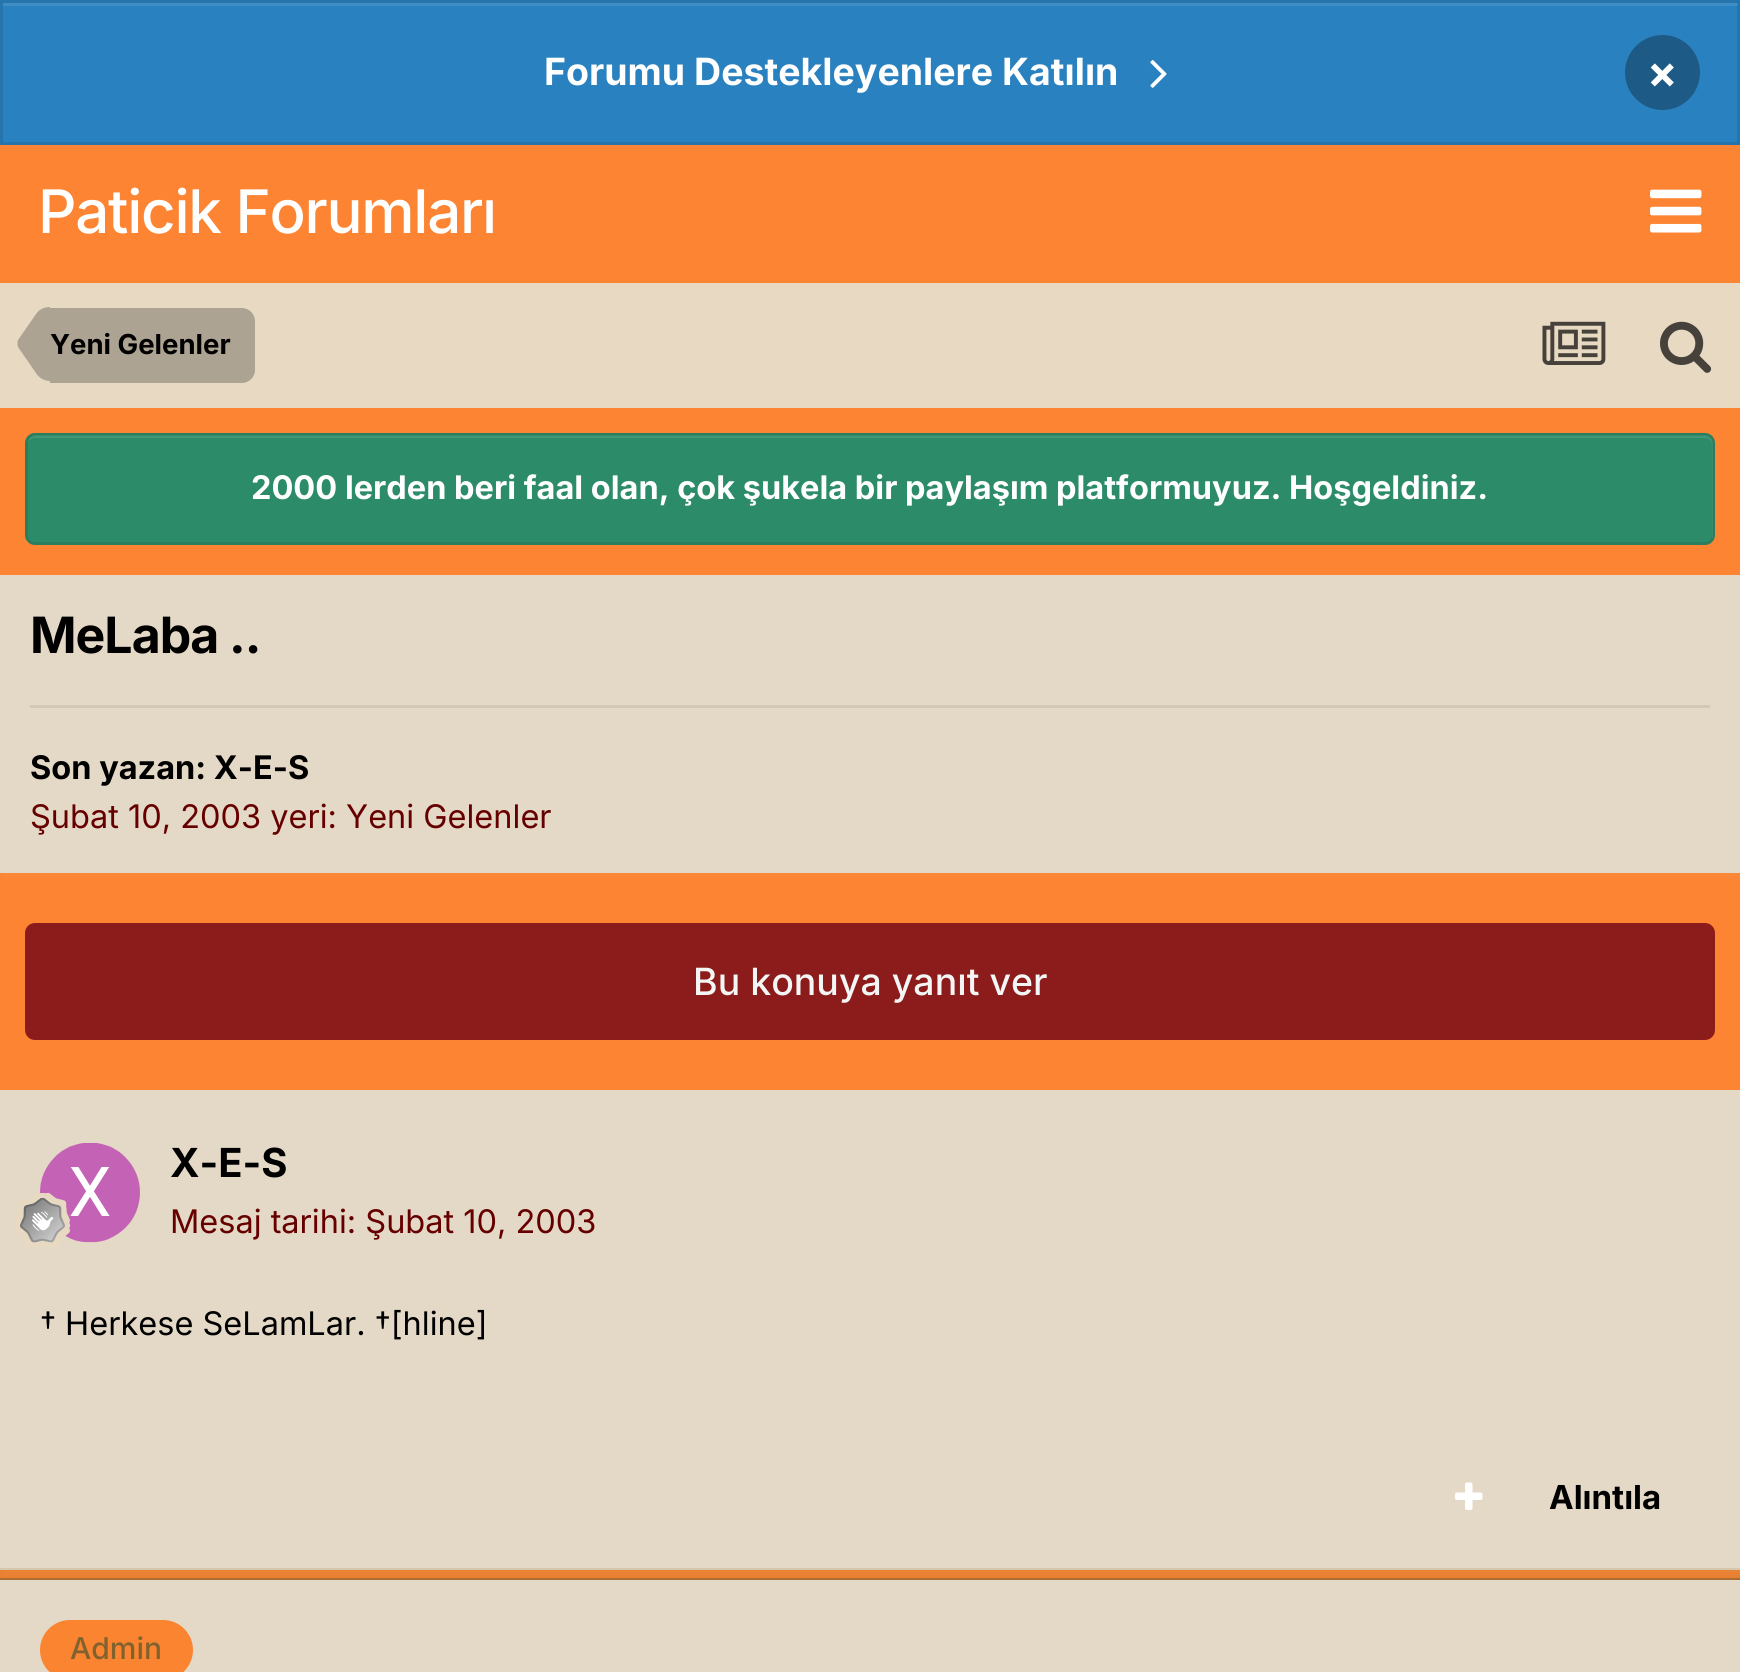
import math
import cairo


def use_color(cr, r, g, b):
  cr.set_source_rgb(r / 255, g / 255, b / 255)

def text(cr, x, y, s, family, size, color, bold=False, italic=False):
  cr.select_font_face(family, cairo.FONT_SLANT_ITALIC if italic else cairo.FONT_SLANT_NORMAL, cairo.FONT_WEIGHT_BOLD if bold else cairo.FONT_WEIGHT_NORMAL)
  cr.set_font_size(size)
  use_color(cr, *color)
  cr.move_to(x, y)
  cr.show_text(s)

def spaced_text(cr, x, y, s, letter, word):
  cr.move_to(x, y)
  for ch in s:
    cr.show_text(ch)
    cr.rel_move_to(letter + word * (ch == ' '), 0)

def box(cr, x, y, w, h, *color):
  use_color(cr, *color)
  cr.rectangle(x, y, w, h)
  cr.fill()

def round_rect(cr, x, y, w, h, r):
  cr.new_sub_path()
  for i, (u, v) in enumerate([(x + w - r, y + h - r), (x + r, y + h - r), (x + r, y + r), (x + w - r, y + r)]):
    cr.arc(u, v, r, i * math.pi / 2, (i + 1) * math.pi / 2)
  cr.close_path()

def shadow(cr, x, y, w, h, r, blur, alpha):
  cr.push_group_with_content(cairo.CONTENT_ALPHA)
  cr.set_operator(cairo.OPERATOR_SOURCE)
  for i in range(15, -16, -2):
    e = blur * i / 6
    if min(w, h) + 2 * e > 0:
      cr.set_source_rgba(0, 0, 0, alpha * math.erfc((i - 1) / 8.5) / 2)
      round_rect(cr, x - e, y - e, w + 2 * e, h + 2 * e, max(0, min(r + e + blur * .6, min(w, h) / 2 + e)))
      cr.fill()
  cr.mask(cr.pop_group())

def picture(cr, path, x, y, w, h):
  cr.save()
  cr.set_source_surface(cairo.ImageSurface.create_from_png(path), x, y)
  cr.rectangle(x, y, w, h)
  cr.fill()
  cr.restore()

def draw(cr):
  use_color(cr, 252, 132, 50)
  cr.paint()
  box(cr, 0, 0, 1740, 145, 41, 129, 191)
  box(cr, 3, 3, 1735, 3, 62, 142, 197)
  cr.rectangle(1.5, 1.5, 1737, 142)
  cr.set_source_rgba(0, 0, 0, 0.1)
  cr.set_line_width(3)
  cr.stroke()
  picture(cr, "img_01.png", 1150, 60, 17, 28)
  use_color(cr, 29, 90, 134)
  cr.arc(1662.5, 72.5, 37.5, 0, 2 * math.pi)
  cr.fill()
  picture(cr, "img_02.png", 1650, 189, 52, 44)
  box(cr, 0, 283, 1740, 125, 231, 217, 194)
  use_color(cr, 173, 163, 146)
  cr.new_path()
  cr.move_to(50, 308)
  cr.line_to(242, 308)
  cr.curve_to(249, 308, 255, 314, 255, 321)
  cr.line_to(255, 370)
  cr.curve_to(255, 377, 249, 383, 242, 383)
  cr.line_to(50, 383)
  cr.close_path()
  cr.fill()
  cr.new_path()
  cr.move_to(19, 348.5)
  cr.curve_to(18, 347.5, 17.5, 345.5, 17.5, 344)
  cr.line_to(50, 344)
  cr.line_to(50, 381)
  cr.curve_to(45.5, 381, 40.5, 379, 37, 374.5)
  cr.close_path()
  cr.fill()
  cr.new_path()
  cr.move_to(50, 307)
  cr.line_to(50, 344)
  cr.line_to(17.5, 344)
  cr.curve_to(17.5, 342.5, 17.5, 341, 18, 340)
  cr.line_to(37.5, 312)
  cr.curve_to(41, 308.5, 45.5, 307, 50, 307)
  cr.close_path()
  cr.fill()
  picture(cr, "img_03.png", 1542, 321, 64, 44)
  picture(cr, "img_04.png", 1660, 321, 52, 52)
  use_color(cr, 44, 140, 105)
  round_rect(cr, 25, 433, 1690, 112, 10)
  cr.fill()
  use_color(cr, 65, 152, 120)
  cr.new_path()
  cr.move_to(35, 438)
  cr.line_to(1705, 438)
  cr.curve_to(1709, 438, 1712, 441, 1712, 445)
  cr.line_to(1712, 539)
  cr.curve_to(1713, 538, 1713, 536, 1713, 535)
  cr.line_to(1713, 443)
  cr.curve_to(1713, 439, 1709, 435, 1705, 435)
  cr.line_to(36, 435)
  cr.curve_to(32, 435, 28, 439, 28, 443)
  cr.line_to(28, 445)
  cr.curve_to(28, 441, 31, 438, 35, 438)
  cr.close_path()
  cr.fill()
  round_rect(cr, 26.5, 434.5, 1687, 109, 8.5)
  cr.set_source_rgba(0, 0, 0, 0.1)
  cr.stroke()
  use_color(cr, 227, 205, 156)
  shadow(cr, 3, 583, 1735, 292, 0, 5, 0.1)
  box(cr, 0, 575, 1740, 298, 228, 217, 198)
  box(cr, 30, 705, 1680, 3, 210, 200, 182)
  use_color(cr, 139, 28, 27)
  round_rect(cr, 25, 923, 1690, 117, 10)
  cr.fill()
  use_color(cr, 227, 205, 156)
  shadow(cr, 3, 1098, 1735, 475, 0, 5, 0.1)
  box(cr, 0, 1090, 1740, 480, 228, 217, 198)
  use_color(cr, 231, 217, 194)
  cr.arc(90, 1193, 50, 0, 2 * math.pi)
  cr.fill()
  picture(cr, "img_05.png", 40, 1143, 100, 100)
  picture(cr, "img_06.png", 16, 1193, 54, 54)
  picture(cr, "img_07.png", 1455, 1482, 28, 28)
  cr.rectangle(-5.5, 1574.5, 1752, 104)
  cr.set_source_rgba(0.506, 0.384, 0.18, 0.15)
  cr.set_line_width(13)
  cr.stroke()
  cr.rectangle(-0.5, 1579.5, 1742, 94)
  use_color(cr, 171, 110, 48)
  cr.set_line_width(3)
  cr.stroke()
  box(cr, 0, 1580, 1740, 92, 228, 217, 198)
  use_color(cr, 251, 132, 49)
  round_rect(cr, 40, 1620, 153, 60, 30)
  cr.fill()
  text(cr, 544, 85, "Forumu Destekleyenlere Katılın", "Inter", 37.5, (255, 255, 255), bold=True)
  text(cr, 1647, 88, "×", "Inter", 45, (255, 255, 255), bold=True)
  cr.select_font_face("Inter Medium")
  cr.set_font_size(60)
  spaced_text(cr, 38, 233, "Paticik Forumları", -1.25, 0)
  cr.save()
  cr.rectangle(50, 308, 180, 75)
  cr.clip()
  text(cr, 50, 354, "Yeni Gelenler", "Inter", 27.5, (0, 0, 0), bold=True)
  cr.restore()
  text(cr, 251, 499, "2000 lerden beri faal olan, çok şukela bir paylaşım platformuyuz. Hoşgeldiniz.", "Inter", 32.5, (255, 255, 255), bold=True)
  cr.set_font_size(50)
  use_color(cr, 0, 0, 0)
  spaced_text(cr, 30, 653, "MeLaba ..", -1, 0)
  text(cr, 30, 779, "Son yazan: X-E-S", "Inter", 32.5, (0, 0, 0), bold=True)
  text(cr, 30, 828, "Şubat 10, 2003 yeri: Yeni Gelenler", "Inter", 32.5, (102, 0, 0))
  text(cr, 693, 995, "Bu konuya yanıt ver", "Inter Medium", 37.5, (243, 246, 244))
  text(cr, 170, 1177, "X-E-S", "Inter", 40, (0, 0, 0), bold=True)
  text(cr, 170, 1233, "Mesaj tarihi: Şubat 10, 2003", "Inter", 32.5, (102, 0, 0))
  text(cr, 40, 1335, "† Herkese SeLamLar. †[hline]", "Inter", 32.5, (0, 0, 0))
  text(cr, 1549, 1509, "Alıntıla", "Inter", 33, (0, 0, 0), bold=True)
  text(cr, 70, 1659, "Admin", "Inter Medium", 30, (129, 98, 46))


surface = cairo.ImageSurface(cairo.FORMAT_RGB24, 1740, 1672)
cr = cairo.Context(surface)
options = cairo.FontOptions()
options.set_hint_metrics(cairo.HINT_METRICS_OFF)
options.set_hint_style(cairo.HINT_STYLE_NONE)
cr.set_font_options(options)
cr.set_miter_limit(4)
draw(cr)
surface.write_to_png("out.png")
